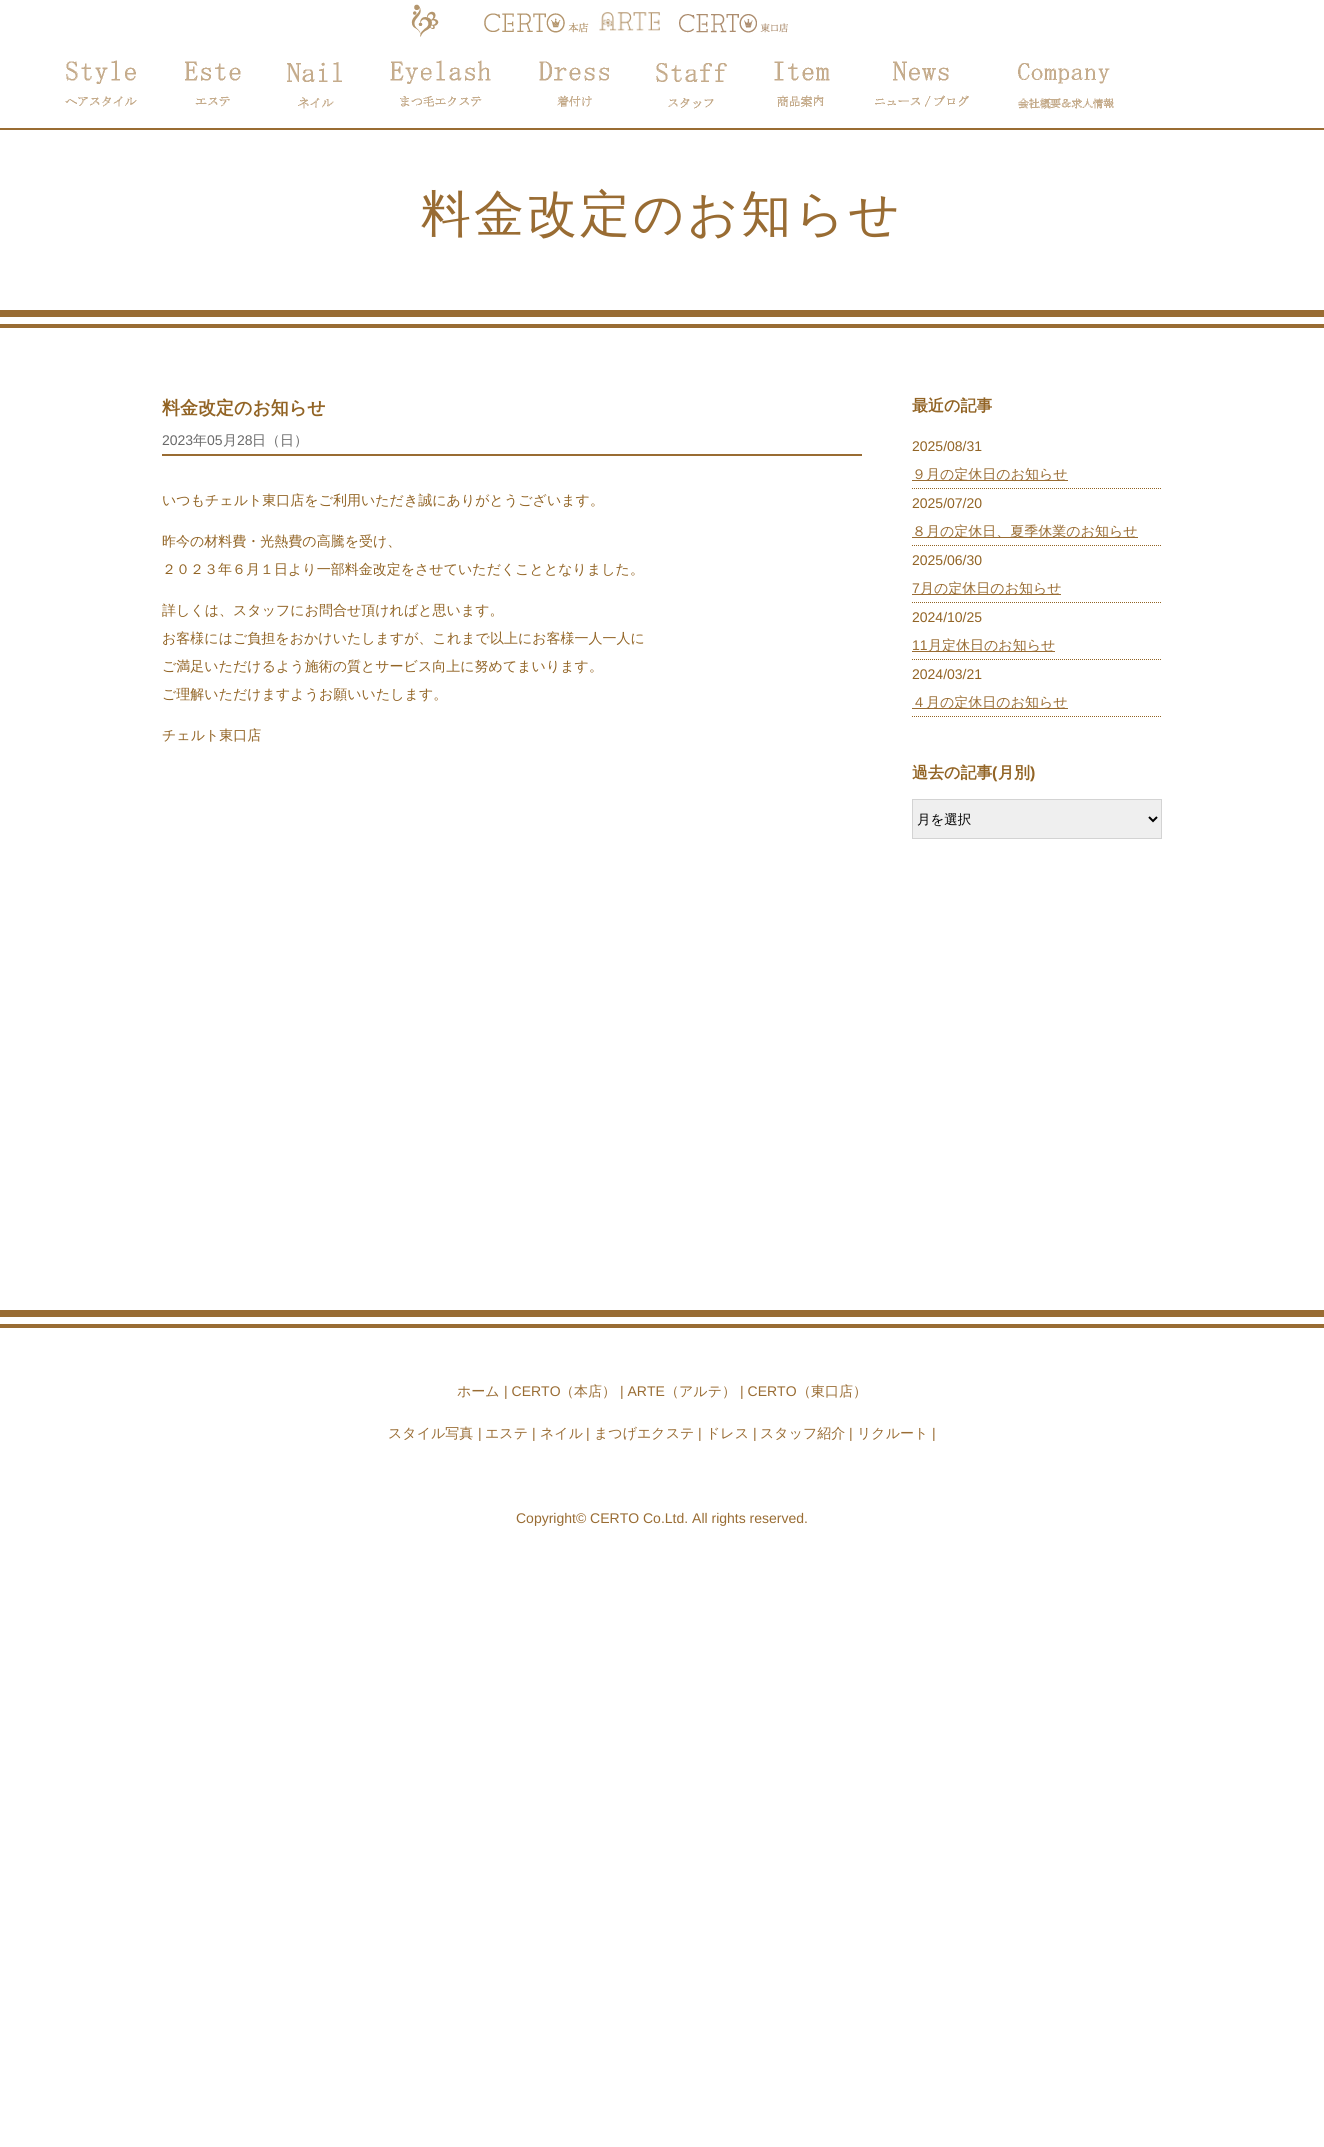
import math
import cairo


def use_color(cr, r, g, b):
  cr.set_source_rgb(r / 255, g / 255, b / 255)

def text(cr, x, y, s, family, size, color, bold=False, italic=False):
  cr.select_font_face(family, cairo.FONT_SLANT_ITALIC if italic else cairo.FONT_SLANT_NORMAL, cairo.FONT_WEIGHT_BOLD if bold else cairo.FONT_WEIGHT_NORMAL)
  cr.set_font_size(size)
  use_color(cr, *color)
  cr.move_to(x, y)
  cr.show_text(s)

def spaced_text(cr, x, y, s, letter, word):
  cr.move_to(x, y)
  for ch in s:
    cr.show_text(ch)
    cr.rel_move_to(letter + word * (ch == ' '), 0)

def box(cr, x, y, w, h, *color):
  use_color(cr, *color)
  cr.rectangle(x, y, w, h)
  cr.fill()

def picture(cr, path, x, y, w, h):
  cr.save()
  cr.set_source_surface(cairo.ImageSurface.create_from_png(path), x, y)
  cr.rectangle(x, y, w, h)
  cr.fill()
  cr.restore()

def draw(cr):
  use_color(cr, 255, 255, 255)
  cr.paint()
  box(cr, 0, 128, 1324, 2, 153, 108, 51)
  picture(cr, "img_01.png", 411, 4, 28, 33)
  picture(cr, "img_02.png", 484, 13, 98, 20)
  picture(cr, "img_03.png", 582, 12, 110, 21)
  picture(cr, "img_04.png", 692, 14, 96, 19)
  picture(cr, "img_05.png", 65, 60, 72, 47)
  picture(cr, "img_06.png", 185, 61, 56, 46)
  picture(cr, "img_07.png", 287, 62, 55, 47)
  picture(cr, "img_08.png", 390, 60, 101, 47)
  picture(cr, "img_09.png", 539, 61, 70, 46)
  picture(cr, "img_10.png", 656, 63, 71, 46)
  picture(cr, "img_11.png", 774, 61, 56, 46)
  picture(cr, "img_12.png", 875, 61, 94, 46)
  picture(cr, "img_13.png", 1018, 63, 96, 46)
  picture(cr, "img_14.png", 0, 310, 1324, 18)
  box(cr, 162, 454, 700, 2, 153, 108, 51)
  cr.new_path()
  cr.move_to(912, 488.5)
  cr.line_to(1162, 488.5)
  use_color(cr, 146, 100, 37)
  cr.set_line_width(1)
  cr.set_dash([1, 1])
  cr.stroke()
  box(cr, 912, 480, 156, 1, 153, 108, 51)
  cr.new_path()
  cr.move_to(912, 545.5)
  cr.line_to(1162, 545.5)
  use_color(cr, 146, 100, 37)
  cr.stroke()
  box(cr, 912, 537, 226, 1, 153, 108, 51)
  cr.new_path()
  cr.move_to(912, 602.5)
  cr.line_to(1162, 602.5)
  use_color(cr, 146, 100, 37)
  cr.stroke()
  box(cr, 912, 594, 149, 1, 153, 108, 51)
  cr.new_path()
  cr.move_to(912, 659.5)
  cr.line_to(1162, 659.5)
  use_color(cr, 146, 100, 37)
  cr.stroke()
  box(cr, 912, 651, 143, 1, 153, 108, 51)
  cr.new_path()
  cr.move_to(912, 716.5)
  cr.line_to(1162, 716.5)
  use_color(cr, 146, 100, 37)
  cr.stroke()
  box(cr, 912, 708, 156, 1, 153, 108, 51)
  use_color(cr, 239, 239, 239)
  cr.rectangle(912.5, 799.5, 249, 39)
  cr.fill_preserve()
  use_color(cr, 211, 211, 211)
  cr.set_dash([])
  cr.stroke()
  cr.new_path()
  cr.move_to(1149, 817)
  cr.line_to(1153, 821)
  cr.line_to(1157, 817)
  use_color(cr, 0, 0, 0)
  cr.set_line_width(2)
  cr.stroke()
  picture(cr, "img_14.png", 0, 1310, 1324, 18)
  cr.select_font_face("WenQuanYi Zen Hei Medium")
  cr.set_font_size(50)
  use_color(cr, 153, 108, 51)
  spaced_text(cr, 421, 231, "料金改定のお知らせ", 3, 0)
  text(cr, 162, 414, "料金改定のお知らせ", "WenQuanYi Zen Hei", 18, (146, 100, 37), bold=True)
  text(cr, 162, 445, "2023", "Liberation Sans", 14, (105, 105, 105))
  text(cr, 193, 445, "年", "WenQuanYi Zen Hei Medium", 14, (105, 105, 105))
  text(cr, 207, 445, "05", "Liberation Sans", 14, (105, 105, 105))
  text(cr, 223, 445, "月", "WenQuanYi Zen Hei Medium", 14, (105, 105, 105))
  text(cr, 237, 445, "28", "Liberation Sans", 14, (105, 105, 105))
  text(cr, 252, 445, "日（日）", "WenQuanYi Zen Hei Medium", 14, (105, 105, 105))
  text(cr, 162, 505, "いつもチェルト東口店をご利用いただき誠にありがとうございます。", "WenQuanYi Zen Hei Medium", 14, (146, 100, 37))
  text(cr, 162, 546, "昨今の材料費・光熱費の高騰を受け、", "WenQuanYi Zen Hei Medium", 14, (146, 100, 37))
  text(cr, 162, 574, "２０２３年６月１日より一部料金改定をさせていただくこととなりました。", "WenQuanYi Zen Hei Medium", 14, (146, 100, 37))
  text(cr, 162, 615, "詳しくは、スタッフにお問合せ頂ければと思います。", "WenQuanYi Zen Hei Medium", 14, (146, 100, 37))
  text(cr, 162, 643, "お客様にはご負担をおかけいたしますが、これまで以上にお客様一人一人に", "WenQuanYi Zen Hei Medium", 14, (146, 100, 37))
  text(cr, 162, 671, "ご満足いただけるよう施術の質とサービス向上に努めてまいります。", "WenQuanYi Zen Hei Medium", 14, (146, 100, 37))
  text(cr, 162, 699, "ご理解いただけますようお願いいたします。", "WenQuanYi Zen Hei Medium", 14, (146, 100, 37))
  text(cr, 162, 740, "チェルト東口店", "WenQuanYi Zen Hei Medium", 14, (146, 100, 37))
  text(cr, 912, 411, "最近の記事", "WenQuanYi Zen Hei", 16, (146, 100, 37), bold=True)
  text(cr, 912, 451, "2025/08/31", "Liberation Sans", 14, (146, 100, 37))
  text(cr, 912, 479, "９月の定休日のお知らせ", "WenQuanYi Zen Hei Medium", 14, (153, 108, 51))
  text(cr, 912, 508, "2025/07/20", "Liberation Sans", 14, (146, 100, 37))
  text(cr, 912, 536, "８月の定休日、夏季休業のお知らせ", "WenQuanYi Zen Hei Medium", 14, (153, 108, 51))
  text(cr, 912, 565, "2025/06/30", "Liberation Sans", 14, (146, 100, 37))
  text(cr, 912, 593, "7", "Liberation Sans", 14, (153, 108, 51))
  text(cr, 920, 593, "月の定休日のお知らせ", "WenQuanYi Zen Hei Medium", 14, (153, 108, 51))
  text(cr, 912, 622, "2024/10/25", "Liberation Sans", 14, (146, 100, 37))
  text(cr, 912, 650, "11", "Liberation Sans", 14, (153, 108, 51))
  text(cr, 928, 650, "月定休日のお知らせ", "WenQuanYi Zen Hei Medium", 14, (153, 108, 51))
  text(cr, 912, 679, "2024/03/21", "Liberation Sans", 14, (146, 100, 37))
  text(cr, 912, 707, "４月の定休日のお知らせ", "WenQuanYi Zen Hei Medium", 14, (153, 108, 51))
  text(cr, 912, 778, "過去の記事", "WenQuanYi Zen Hei", 16, (146, 100, 37), bold=True)
  text(cr, 992, 778, "(", "Liberation Sans", 16, (146, 100, 37), bold=True)
  text(cr, 998, 778, "月別", "WenQuanYi Zen Hei", 16, (146, 100, 37), bold=True)
  text(cr, 1030, 778, ")", "Liberation Sans", 16, (146, 100, 37), bold=True)
  text(cr, 917, 824, "月を選択", "WenQuanYi Zen Hei Medium", 13.5, (0, 0, 0))
  text(cr, 457, 1396, "ホーム", "WenQuanYi Zen Hei Medium", 14, (153, 108, 51))
  text(cr, 504, 1396, "| CERTO", "Liberation Sans", 14, (153, 108, 51))
  text(cr, 560, 1396, "（本店）", "WenQuanYi Zen Hei Medium", 14, (153, 108, 51))
  text(cr, 620, 1396, "| ARTE", "Liberation Sans", 14, (153, 108, 51))
  text(cr, 665, 1396, "（アルテ）", "WenQuanYi Zen Hei Medium", 14, (153, 108, 51))
  text(cr, 740, 1396, "| CERTO", "Liberation Sans", 14, (153, 108, 51))
  text(cr, 797, 1396, "（東口店）", "WenQuanYi Zen Hei Medium", 14, (153, 108, 51))
  text(cr, 388, 1438, "スタイル写真", "WenQuanYi Zen Hei Medium", 14, (153, 108, 51))
  text(cr, 478, 1438, "|", "Liberation Sans", 14, (153, 108, 51))
  text(cr, 485, 1438, "エステ", "WenQuanYi Zen Hei Medium", 14, (153, 108, 51))
  text(cr, 532, 1438, "|", "Liberation Sans", 14, (153, 108, 51))
  text(cr, 540, 1438, "ネイル", "WenQuanYi Zen Hei Medium", 14, (153, 108, 51))
  text(cr, 586, 1438, "|", "Liberation Sans", 14, (153, 108, 51))
  text(cr, 594, 1438, "まつげエクステ", "WenQuanYi Zen Hei Medium", 14, (153, 108, 51))
  text(cr, 698, 1438, "|", "Liberation Sans", 14, (153, 108, 51))
  text(cr, 706, 1438, "ドレス", "WenQuanYi Zen Hei Medium", 14, (153, 108, 51))
  text(cr, 753, 1438, "|", "Liberation Sans", 14, (153, 108, 51))
  text(cr, 760, 1438, "スタッフ紹介", "WenQuanYi Zen Hei Medium", 14, (153, 108, 51))
  text(cr, 849, 1438, "|", "Liberation Sans", 14, (153, 108, 51))
  text(cr, 857, 1438, "リクルート", "WenQuanYi Zen Hei Medium", 14, (153, 108, 51))
  text(cr, 932, 1438, "|", "Liberation Sans", 14, (153, 108, 51))
  text(cr, 516, 1523, "Copyright© CERTO Co.Ltd. All rights reserved.", "Liberation Sans", 14, (153, 108, 51))


surface = cairo.ImageSurface(cairo.FORMAT_RGB24, 1324, 2147)
cr = cairo.Context(surface)
options = cairo.FontOptions()
options.set_hint_metrics(cairo.HINT_METRICS_OFF)
options.set_hint_style(cairo.HINT_STYLE_NONE)
cr.set_font_options(options)
cr.set_miter_limit(4)
draw(cr)
surface.write_to_png("out.png")
